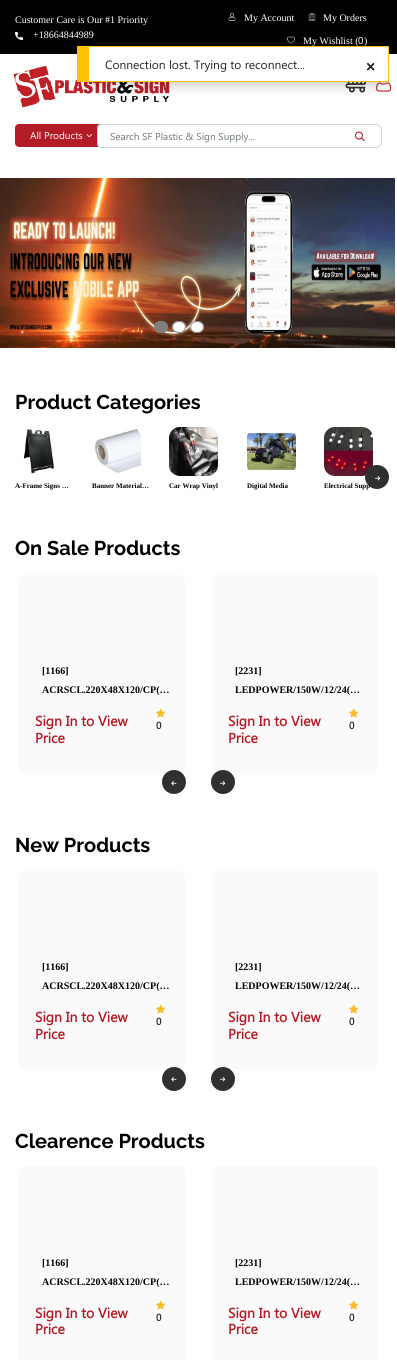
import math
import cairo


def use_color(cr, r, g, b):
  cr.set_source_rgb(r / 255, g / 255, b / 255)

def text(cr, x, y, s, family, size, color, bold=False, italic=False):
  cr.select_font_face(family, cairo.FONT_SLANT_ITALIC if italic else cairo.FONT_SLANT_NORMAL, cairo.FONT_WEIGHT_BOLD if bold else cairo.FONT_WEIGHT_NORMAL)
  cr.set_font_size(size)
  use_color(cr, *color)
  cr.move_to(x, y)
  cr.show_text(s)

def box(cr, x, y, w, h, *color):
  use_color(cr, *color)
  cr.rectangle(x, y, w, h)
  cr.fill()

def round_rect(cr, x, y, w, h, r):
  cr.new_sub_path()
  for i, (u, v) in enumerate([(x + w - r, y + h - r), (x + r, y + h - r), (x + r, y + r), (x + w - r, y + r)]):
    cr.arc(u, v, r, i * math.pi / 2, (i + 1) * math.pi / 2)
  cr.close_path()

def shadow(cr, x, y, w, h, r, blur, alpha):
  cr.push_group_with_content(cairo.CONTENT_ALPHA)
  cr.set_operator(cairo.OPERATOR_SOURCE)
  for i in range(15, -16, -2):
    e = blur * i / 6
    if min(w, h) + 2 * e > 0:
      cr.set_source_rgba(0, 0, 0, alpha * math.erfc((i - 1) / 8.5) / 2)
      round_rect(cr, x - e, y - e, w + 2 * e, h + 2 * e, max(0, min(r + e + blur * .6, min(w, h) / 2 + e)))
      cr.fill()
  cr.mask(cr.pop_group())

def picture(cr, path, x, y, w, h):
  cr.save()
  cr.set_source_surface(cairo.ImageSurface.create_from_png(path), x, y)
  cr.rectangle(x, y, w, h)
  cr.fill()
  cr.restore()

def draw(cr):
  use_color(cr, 255, 255, 255)
  cr.paint()
  box(cr, 0, 0, 397, 54, 0, 0, 0)
  picture(cr, "img_01.png", 15, 32, 8, 8)
  picture(cr, "img_02.png", 228, 13, 8, 8)
  picture(cr, "img_03.png", 308, 13, 8, 8)
  picture(cr, "img_04.png", 287, 36, 8, 8)
  picture(cr, "img_05.png", 13, 65, 157, 43)
  picture(cr, "img_06.png", 345, 82, 22, 11)
  picture(cr, "img_07.png", 376, 82, 16, 10)
  use_color(cr, 179, 28, 39)
  round_rect(cr, 15, 124, 95, 23, 4)
  cr.fill()
  picture(cr, "img_08.png", 86, 134, 6, 4)
  use_color(cr, 255, 255, 255)
  cr.new_path()
  cr.move_to(101, 124.5)
  cr.line_to(376, 124.5)
  cr.curve_to(379, 124.5, 381.5, 127, 381.5, 130)
  cr.line_to(381.5, 142)
  cr.curve_to(381.5, 145, 379, 147.5, 376, 147.5)
  cr.line_to(101, 147.5)
  cr.curve_to(99, 147.5, 97.5, 146, 97.5, 144)
  cr.line_to(97.5, 128)
  cr.curve_to(97.5, 126, 99, 124.5, 101, 124.5)
  cr.close_path()
  cr.fill_preserve()
  use_color(cr, 206, 212, 218)
  cr.set_line_width(1)
  cr.stroke()
  picture(cr, "img_09.png", 355, 131, 10, 11)
  picture(cr, "img_10.png", 0, 178, 395, 170)
  use_color(cr, 128, 128, 128)
  cr.new_path()
  cr.move_to(161, 321)
  cr.curve_to(165, 321, 168, 323.5, 168, 327)
  cr.curve_to(168, 330.5, 165, 333, 161, 333)
  cr.curve_to(157, 333, 154, 330.5, 154, 327)
  cr.curve_to(154, 323.5, 157, 321, 161, 321)
  cr.close_path()
  cr.fill()
  cr.new_path()
  cr.move_to(161, 321.5)
  cr.curve_to(169.5, 321.5, 169.5, 332.5, 161, 332.5)
  cr.curve_to(152.5, 332.5, 152.5, 321.5, 161, 321.5)
  cr.close_path()
  cr.stroke()
  use_color(cr, 255, 255, 255)
  cr.new_path()
  cr.move_to(179, 321)
  cr.curve_to(183, 321, 186, 323.5, 186, 327)
  cr.curve_to(186, 330.5, 183, 333, 179, 333)
  cr.curve_to(175, 333, 172, 330.5, 172, 327)
  cr.curve_to(172, 323.5, 175, 321, 179, 321)
  cr.close_path()
  cr.fill()
  cr.new_path()
  cr.move_to(179, 321.5)
  cr.curve_to(187.5, 321.5, 187.5, 332.5, 179, 332.5)
  cr.curve_to(170.5, 332.5, 170.5, 321.5, 179, 321.5)
  cr.close_path()
  use_color(cr, 128, 128, 128)
  cr.stroke()
  use_color(cr, 255, 255, 255)
  cr.new_path()
  cr.move_to(197, 321)
  cr.curve_to(201, 321, 204, 323.5, 204, 327)
  cr.curve_to(204, 330.5, 201, 333, 197, 333)
  cr.curve_to(193, 333, 190, 330.5, 190, 327)
  cr.curve_to(190, 323.5, 193, 321, 197, 321)
  cr.close_path()
  cr.fill()
  cr.new_path()
  cr.move_to(197, 321.5)
  cr.curve_to(205.5, 321.5, 205.5, 332.5, 197, 332.5)
  cr.curve_to(188.5, 332.5, 188.5, 321.5, 197, 321.5)
  cr.close_path()
  use_color(cr, 128, 128, 128)
  cr.stroke()
  picture(cr, "img_11.png", 23, 429, 32, 45)
  picture(cr, "img_12.png", 94, 429, 47, 44)
  picture(cr, "img_13.png", 169, 427, 49, 49)
  picture(cr, "img_14.png", 247, 432, 49, 39)
  picture(cr, "img_15.png", 324, 427, 49, 49)
  use_color(cr, 250, 250, 250)
  round_rect(cr, 19, 575, 166, 198, 5)
  cr.fill()
  picture(cr, "img_17.png", 156, 708, 10, 10)
  round_rect(cr, 212, 575, 166, 198, 5)
  cr.fill()
  picture(cr, "img_17.png", 349, 708, 10, 10)
  use_color(cr, 48, 48, 48)
  cr.arc(174, 782, 12, 0, 2 * math.pi)
  cr.fill()
  picture(cr, "img_18.png", 171, 781, 6, 5)
  cr.arc(223, 782, 12, 0, 2 * math.pi)
  cr.fill()
  picture(cr, "img_19.png", 220, 781, 6, 5)
  use_color(cr, 250, 250, 250)
  round_rect(cr, 19, 871, 166, 198, 5)
  cr.fill()
  picture(cr, "img_17.png", 156, 1004, 10, 10)
  round_rect(cr, 212, 871, 166, 198, 5)
  cr.fill()
  picture(cr, "img_17.png", 349, 1004, 10, 10)
  use_color(cr, 48, 48, 48)
  cr.arc(174, 1079, 12, 0, 2 * math.pi)
  cr.fill()
  picture(cr, "img_18.png", 171, 1077, 6, 5)
  cr.arc(223, 1079, 12, 0, 2 * math.pi)
  cr.fill()
  picture(cr, "img_19.png", 220, 1077, 6, 5)
  use_color(cr, 250, 250, 250)
  round_rect(cr, 19, 1166, 166, 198, 5)
  cr.fill()
  picture(cr, "img_17.png", 156, 1300, 10, 10)
  round_rect(cr, 212, 1166, 166, 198, 5)
  cr.fill()
  picture(cr, "img_17.png", 349, 1300, 10, 10)
  use_color(cr, 0, 0, 0)
  shadow(cr, 87, 68, 292, 16, 0, 7, 0.25)
  box(cr, 89, 47, 299, 34, 255, 255, 255)
  box(cr, 77, 46, 12, 36, 255, 193, 7)
  text(cr, 15, 23, "Customer Care is Our #1 Priority", "Liberation Serif", 10, (255, 255, 255))
  text(cr, 33, 38, "+18664844989", "Liberation Serif", 10, (255, 255, 255))
  text(cr, 244, 21, "My Account", "Liberation Serif", 10, (255, 255, 255))
  text(cr, 323, 21, "My Orders", "Liberation Serif", 10, (255, 255, 255))
  text(cr, 303, 44, "My Wishlist (", "Liberation Serif", 10, (255, 255, 255))
  text(cr, 358, 44, "0", "Segoe UI", 10, (255, 255, 255))
  text(cr, 364, 44, ")", "Liberation Serif", 10, (255, 255, 255))
  text(cr, 30, 139, "All Products", "Segoe UI", 10, (255, 255, 255))
  text(cr, 110, 140, "Search SF Plastic & Sign Supply...", "Segoe UI", 10, (108, 117, 125))
  text(cr, 15, 409, "Product Categories", "Raleway", 20, (0, 0, 0), bold=True)
  text(cr, 15, 488, "A-Frame Signs …", "Liberation Serif", 7, (0, 0, 0), bold=True)
  text(cr, 92, 488, "Banner Material…", "Liberation Serif", 7, (0, 0, 0), bold=True)
  text(cr, 169, 488, "Car Wrap Vinyl", "Liberation Serif", 7, (0, 0, 0), bold=True)
  text(cr, 247, 488, "Digital Media", "Liberation Serif", 7, (0, 0, 0), bold=True)
  text(cr, 324, 488, "Electrical Supp", "Liberation Serif", 7, (0, 0, 0), bold=True)
  use_color(cr, 48, 48, 48)
  cr.new_path()
  cr.arc(377, 477, 12, 0, 2 * math.pi)
  cr.fill()
  picture(cr, "img_16.png", 375, 476, 5, 5)
  text(cr, 15, 555, "On Sale Products", "Raleway", 20, (0, 0, 0), bold=True)
  text(cr, 42, 674, "[1166]", "Liberation Serif", 10, (0, 0, 0), bold=True)
  text(cr, 42, 693, "ACRSCL.220X48X120/CP(…", "Liberation Serif", 10, (0, 0, 0), bold=True)
  text(cr, 35, 726, "Sign In to View", "Segoe UI", 14, (179, 28, 39), bold=True)
  text(cr, 35, 743, "Price", "Segoe UI", 14, (179, 28, 39), bold=True)
  text(cr, 156, 729, "0", "Segoe UI", 10, (33, 37, 41), bold=True)
  text(cr, 235, 674, "[2231]", "Liberation Serif", 10, (0, 0, 0), bold=True)
  text(cr, 235, 693, "LEDPOWER/150W/12/24(…", "Liberation Serif", 10, (0, 0, 0), bold=True)
  text(cr, 228, 726, "Sign In to View", "Segoe UI", 14, (179, 28, 39), bold=True)
  text(cr, 228, 743, "Price", "Segoe UI", 14, (179, 28, 39), bold=True)
  text(cr, 349, 729, "0", "Segoe UI", 10, (33, 37, 41), bold=True)
  text(cr, 15, 852, "New Products", "Raleway", 20, (0, 0, 0), bold=True)
  text(cr, 42, 970, "[1166]", "Liberation Serif", 10, (0, 0, 0), bold=True)
  text(cr, 42, 989, "ACRSCL.220X48X120/CP(…", "Liberation Serif", 10, (0, 0, 0), bold=True)
  text(cr, 35, 1022, "Sign In to View", "Segoe UI", 14, (179, 28, 39), bold=True)
  text(cr, 35, 1039, "Price", "Segoe UI", 14, (179, 28, 39), bold=True)
  text(cr, 156, 1025, "0", "Segoe UI", 10, (33, 37, 41), bold=True)
  text(cr, 235, 970, "[2231]", "Liberation Serif", 10, (0, 0, 0), bold=True)
  text(cr, 235, 989, "LEDPOWER/150W/12/24(…", "Liberation Serif", 10, (0, 0, 0), bold=True)
  text(cr, 228, 1022, "Sign In to View", "Segoe UI", 14, (179, 28, 39), bold=True)
  text(cr, 228, 1039, "Price", "Segoe UI", 14, (179, 28, 39), bold=True)
  text(cr, 349, 1025, "0", "Segoe UI", 10, (33, 37, 41), bold=True)
  text(cr, 15, 1148, "Clearence Products", "Raleway", 20, (0, 0, 0), bold=True)
  text(cr, 42, 1266, "[1166]", "Liberation Serif", 10, (0, 0, 0), bold=True)
  text(cr, 42, 1285, "ACRSCL.220X48X120/CP(…", "Liberation Serif", 10, (0, 0, 0), bold=True)
  text(cr, 35, 1318, "Sign In to View", "Segoe UI", 14, (179, 28, 39), bold=True)
  text(cr, 35, 1334, "Price", "Segoe UI", 14, (179, 28, 39), bold=True)
  text(cr, 156, 1321, "0", "Segoe UI", 10, (33, 37, 41), bold=True)
  text(cr, 235, 1266, "[2231]", "Liberation Serif", 10, (0, 0, 0), bold=True)
  text(cr, 235, 1285, "LEDPOWER/150W/12/24(…", "Liberation Serif", 10, (0, 0, 0), bold=True)
  text(cr, 228, 1318, "Sign In to View", "Segoe UI", 14, (179, 28, 39), bold=True)
  text(cr, 228, 1334, "Price", "Segoe UI", 14, (179, 28, 39), bold=True)
  text(cr, 349, 1321, "0", "Segoe UI", 10, (33, 37, 41), bold=True)
  box(cr, 89, 46, 300, 1, 255, 193, 7)
  box(cr, 388, 46, 1, 36, 255, 193, 7)
  box(cr, 89, 81, 300, 1, 255, 193, 7)
  text(cr, 105, 69, "Connection lost. Trying to reconnect...", "Segoe UI", 12, (33, 37, 41))
  text(cr, 366, 72, "×", "Liberation Sans", 16, (33, 37, 41), bold=True)


surface = cairo.ImageSurface(cairo.FORMAT_RGB24, 397, 1360)
cr = cairo.Context(surface)
options = cairo.FontOptions()
options.set_hint_metrics(cairo.HINT_METRICS_OFF)
options.set_hint_style(cairo.HINT_STYLE_NONE)
cr.set_font_options(options)
cr.set_miter_limit(4)
draw(cr)
surface.write_to_png("out.png")
